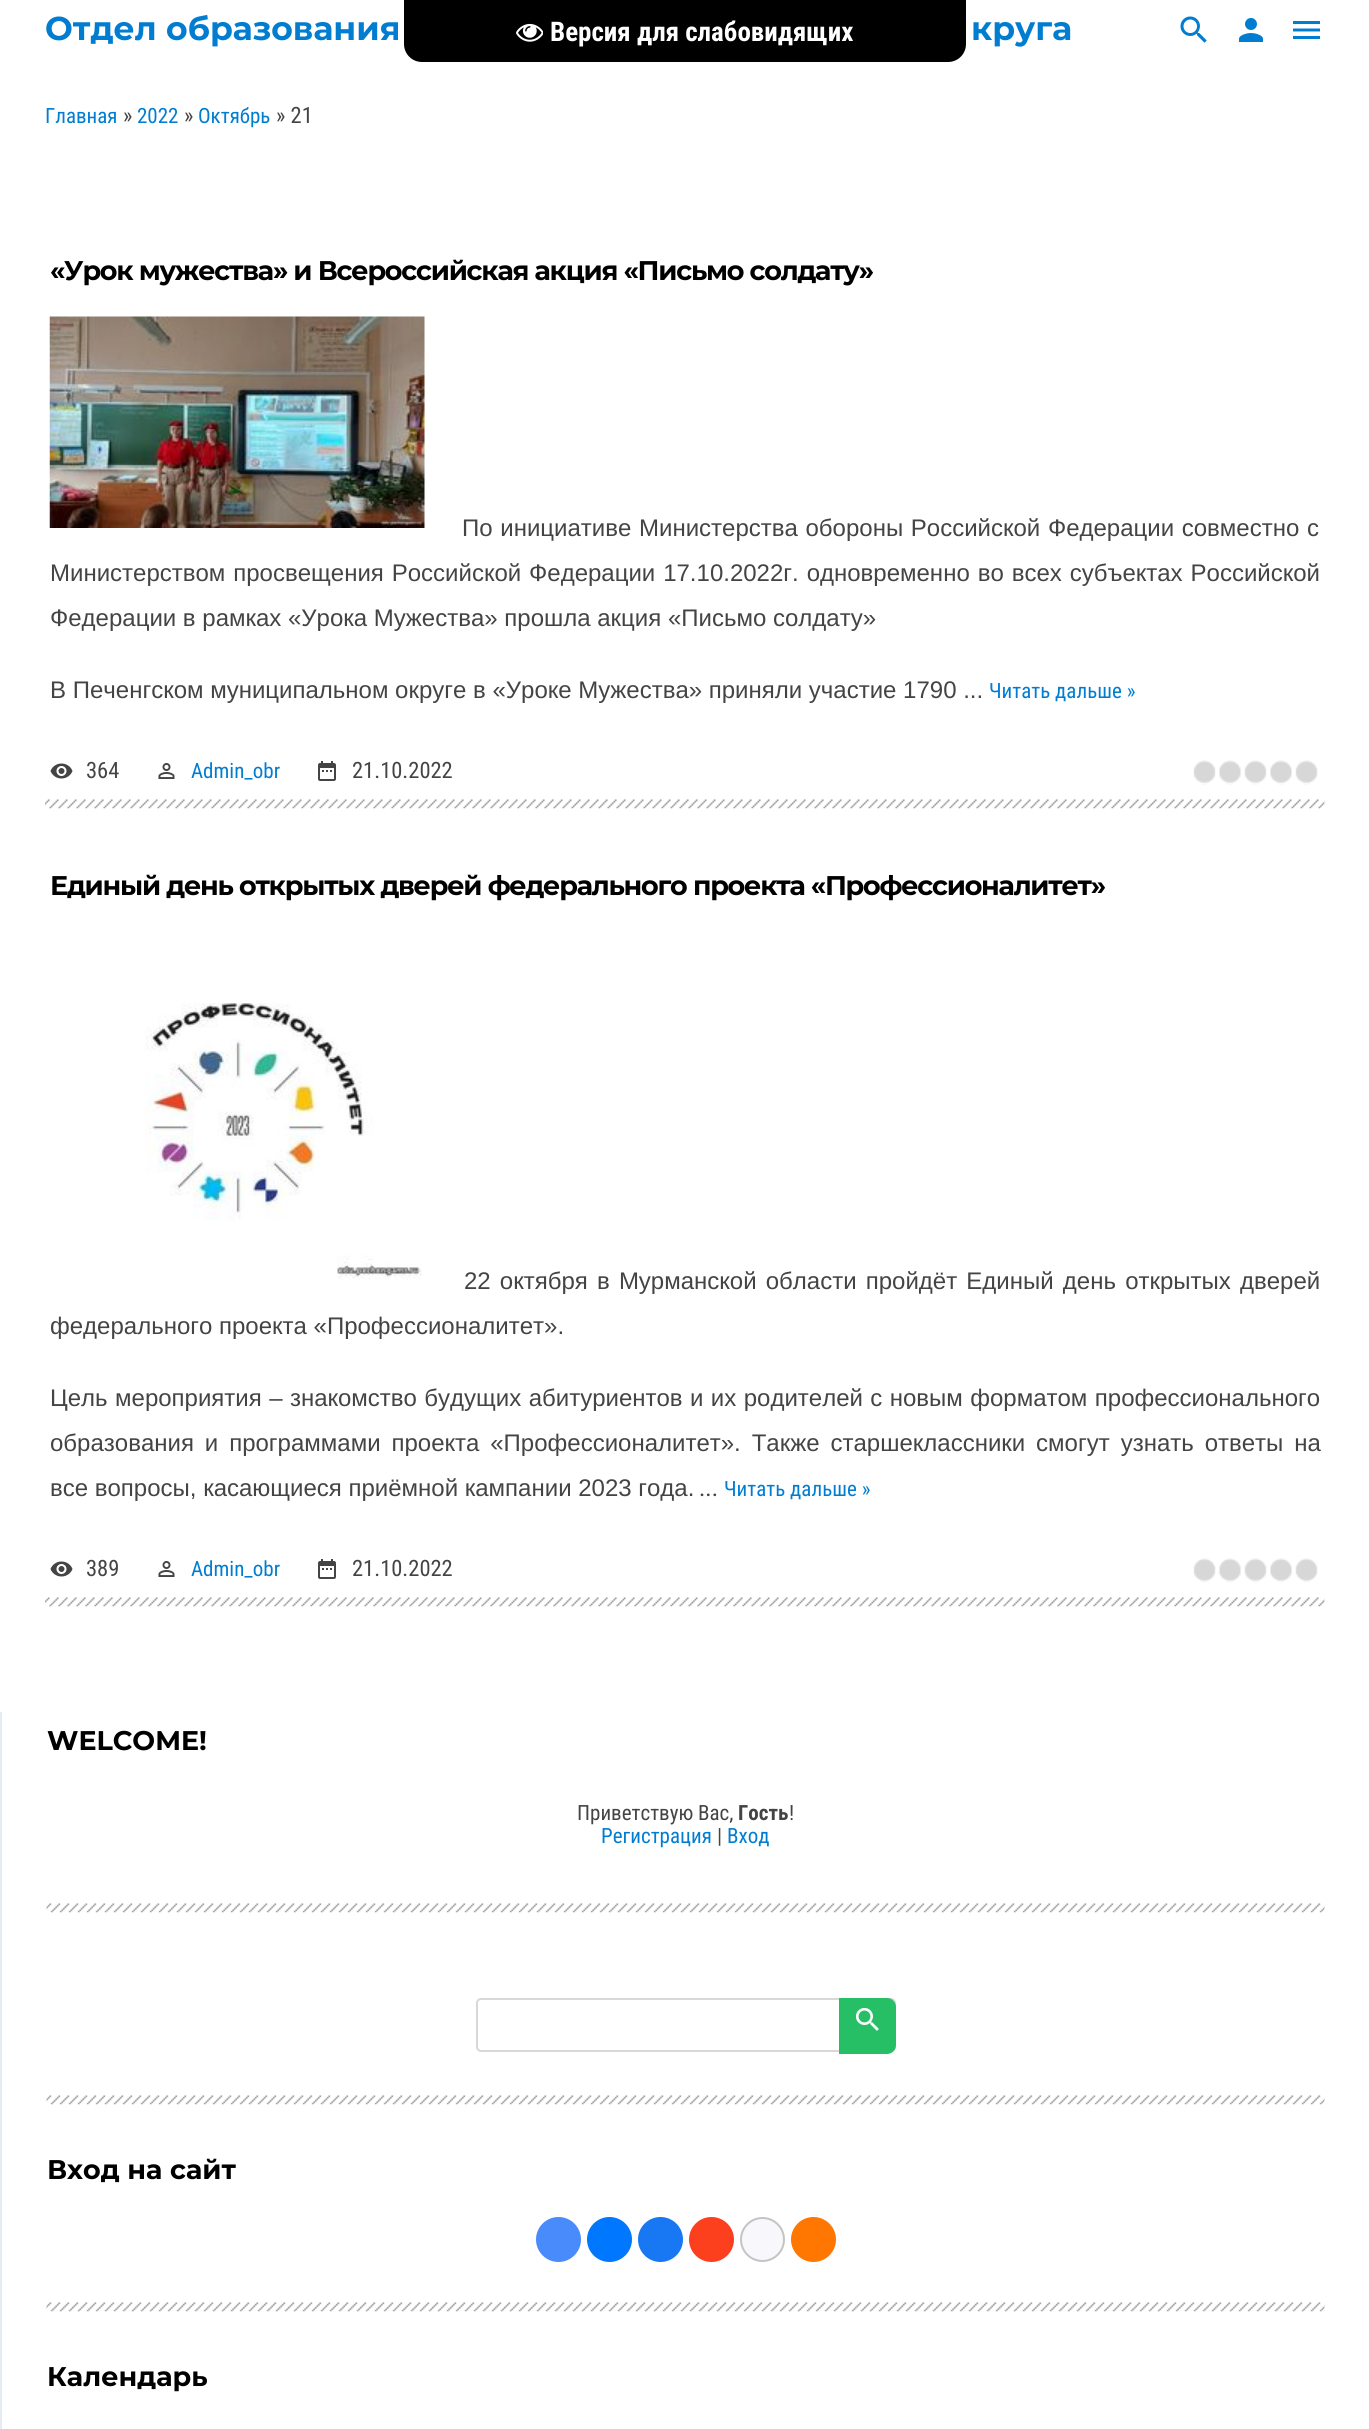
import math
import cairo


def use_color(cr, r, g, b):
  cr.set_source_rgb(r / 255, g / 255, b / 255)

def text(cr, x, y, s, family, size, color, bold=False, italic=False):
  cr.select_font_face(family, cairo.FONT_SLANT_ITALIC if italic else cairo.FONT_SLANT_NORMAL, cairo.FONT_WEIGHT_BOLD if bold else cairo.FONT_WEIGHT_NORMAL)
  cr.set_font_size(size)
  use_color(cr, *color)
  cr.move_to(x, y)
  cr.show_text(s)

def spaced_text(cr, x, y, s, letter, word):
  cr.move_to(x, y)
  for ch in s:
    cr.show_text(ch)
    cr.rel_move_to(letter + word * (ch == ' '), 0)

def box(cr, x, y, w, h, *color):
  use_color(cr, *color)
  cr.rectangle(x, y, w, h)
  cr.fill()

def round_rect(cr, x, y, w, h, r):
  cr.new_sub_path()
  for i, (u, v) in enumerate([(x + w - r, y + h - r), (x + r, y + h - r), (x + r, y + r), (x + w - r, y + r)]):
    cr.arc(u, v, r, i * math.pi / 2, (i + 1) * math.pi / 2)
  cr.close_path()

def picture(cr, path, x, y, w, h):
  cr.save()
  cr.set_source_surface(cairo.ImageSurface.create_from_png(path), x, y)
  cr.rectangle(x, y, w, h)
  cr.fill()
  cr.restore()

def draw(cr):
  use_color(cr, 255, 255, 255)
  cr.paint()
  picture(cr, "img_01.png", 1180, 16, 27, 27)
  picture(cr, "img_02.png", 1238, 18, 26, 24)
  picture(cr, "img_03.png", 1293, 21, 27, 18)
  use_color(cr, 0, 0, 0)
  cr.new_path()
  cr.move_to(404, 0)
  cr.line_to(966, 0)
  cr.line_to(966, 44)
  cr.curve_to(966, 54, 958, 62, 948, 62)
  cr.line_to(422, 62)
  cr.curve_to(412, 62, 404, 54, 404, 44)
  cr.close_path()
  cr.fill()
  picture(cr, "img_04.png", 516, 23, 27, 19)
  picture(cr, "img_05.png", 49, 316, 376, 212)
  picture(cr, "img_06.png", 50, 763, 23, 16)
  picture(cr, "img_07.png", 158, 763, 17, 16)
  picture(cr, "img_08.png", 318, 761, 18, 20)
  picture(cr, "img_09.png", 1193, 760, 125, 25)
  picture(cr, "img_10.png", 45, 799, 1280, 10)
  picture(cr, "img_11.png", 145, 1003, 277, 277)
  picture(cr, "img_06.png", 50, 1561, 23, 16)
  picture(cr, "img_07.png", 158, 1561, 17, 16)
  picture(cr, "img_08.png", 318, 1559, 18, 20)
  picture(cr, "img_12.png", 1193, 1558, 125, 25)
  picture(cr, "img_10.png", 45, 1597, 1280, 10)
  box(cr, 0, 1712, 2, 717, 229, 235, 240)
  picture(cr, "img_13.png", 46, 1903, 1279, 10)
  round_rect(cr, 477, 1999, 418, 52, 4)
  use_color(cr, 216, 216, 216)
  cr.stroke()
  use_color(cr, 38, 191, 102)
  cr.new_path()
  cr.move_to(839, 1998)
  cr.line_to(887, 1998)
  cr.curve_to(892, 1998, 896, 2002, 896, 2007)
  cr.line_to(896, 2045)
  cr.curve_to(896, 2050, 892, 2054, 887, 2054)
  cr.line_to(839, 2054)
  cr.close_path()
  cr.fill()
  picture(cr, "img_14.png", 855, 2007, 24, 24)
  picture(cr, "img_13.png", 46, 2095, 1279, 10)
  use_color(cr, 73, 139, 250)
  cr.arc(558.5, 2239.5, 22.5, 0, 2 * math.pi)
  cr.fill()
  use_color(cr, 0, 119, 255)
  cr.arc(609.5, 2239.5, 22.5, 0, 2 * math.pi)
  cr.fill()
  use_color(cr, 24, 119, 242)
  cr.arc(660.5, 2239.5, 22.5, 0, 2 * math.pi)
  cr.fill()
  use_color(cr, 252, 63, 29)
  cr.arc(711.5, 2239.5, 22.5, 0, 2 * math.pi)
  cr.fill()
  use_color(cr, 248, 248, 252)
  cr.arc(762.5, 2239.5, 21.5, 0, 2 * math.pi)
  cr.fill_preserve()
  use_color(cr, 196, 196, 196)
  cr.stroke()
  use_color(cr, 255, 119, 0)
  cr.arc(813.5, 2239.5, 22.5, 0, 2 * math.pi)
  cr.fill()
  picture(cr, "img_13.png", 46, 2302, 1279, 10)
  text(cr, 45, 40, "Отдел образования", "Montserrat", 33, (0, 125, 209), bold=True)
  text(cr, 971, 40, "круга", "Montserrat", 33, (0, 125, 209), bold=True)
  text(cr, 550, 41, "Версия для слабовидящих", "Roboto Condensed", 27, (255, 255, 255), bold=True)
  text(cr, 45, 123, "Главная", "Roboto Condensed", 21, (0, 125, 209))
  text(cr, 123, 123, "»", "Roboto Condensed", 22.5, (68, 68, 68))
  text(cr, 137, 123, "2022", "Roboto Condensed", 21, (0, 125, 209))
  text(cr, 184, 123, "»", "Roboto Condensed", 22.5, (68, 68, 68))
  text(cr, 198, 123, "Октябрь", "Roboto Condensed", 21, (0, 125, 209))
  text(cr, 276, 123, "» 21", "Roboto Condensed", 22.5, (68, 68, 68))
  cr.select_font_face("Montserrat", cairo.FONT_SLANT_NORMAL, cairo.FONT_WEIGHT_BOLD)
  cr.set_font_size(27)
  use_color(cr, 0, 0, 0)
  spaced_text(cr, 50, 280, "«Урок мужества» и Всероссийская акция «Письмо солдату»", -1.25, 0)
  cr.select_font_face("Liberation Sans")
  cr.set_font_size(24)
  use_color(cr, 68, 68, 68)
  spaced_text(cr, 462, 536, "По инициативе Министерства обороны Российской Федерации совместно с", 0, 1)
  spaced_text(cr, 50, 581, "Министерством просвещения Российской Федерации 17.10.2022г. одновременно во всех субъектах Российской", 0, 1.25)
  text(cr, 50, 626, "Федерации в рамках «Урока Мужества» прошла акция «Письмо солдату»", "Liberation Sans", 24, (68, 68, 68))
  text(cr, 50, 698, "В Печенгском муниципальном округе в «Уроке Мужества» приняли участие 1790 ...", "Liberation Sans", 24, (68, 68, 68))
  text(cr, 989, 698, "Читать дальше »", "Roboto Condensed", 21, (0, 125, 209))
  text(cr, 86, 778, "364", "Roboto Condensed", 22.5, (68, 68, 68))
  text(cr, 191, 778, "Admin_obr", "Roboto Condensed", 21, (0, 125, 209))
  text(cr, 352, 778, "21.10.2022", "Roboto Condensed", 22.5, (68, 68, 68))
  cr.select_font_face("Montserrat", cairo.FONT_SLANT_NORMAL, cairo.FONT_WEIGHT_BOLD)
  cr.set_font_size(27)
  use_color(cr, 0, 0, 0)
  spaced_text(cr, 50, 895, "Единый день открытых дверей федерального проекта «Профессионалитет»", -1.25, 0)
  cr.select_font_face("Liberation Sans")
  cr.set_font_size(24)
  use_color(cr, 68, 68, 68)
  spaced_text(cr, 464, 1289, "22 октября в Мурманской области пройдёт Единый день открытых дверей", 0, 2.5)
  text(cr, 50, 1334, "федерального проекта «Профессионалитет».", "Liberation Sans", 24, (68, 68, 68))
  spaced_text(cr, 50, 1406, "Цель мероприятия – знакомство будущих абитуриентов и их родителей с новым форматом профессионального", 0, 0.75)
  spaced_text(cr, 50, 1451, "образования и программами проекта «Профессионалитет». Также старшеклассники смогут узнать ответы на", 0, 4.25)
  text(cr, 50, 1496, "все вопросы, касающиеся приёмной кампании 2023 года.", "Liberation Sans", 24, (68, 68, 68))
  text(cr, 699, 1496, "...", "Roboto Condensed", 24, (68, 68, 68))
  text(cr, 724, 1496, "Читать дальше »", "Roboto Condensed", 21, (0, 125, 209))
  text(cr, 86, 1576, "389", "Roboto Condensed", 22.5, (68, 68, 68))
  text(cr, 191, 1576, "Admin_obr", "Roboto Condensed", 21, (0, 125, 209))
  text(cr, 352, 1576, "21.10.2022", "Roboto Condensed", 22.5, (68, 68, 68))
  text(cr, 47, 1750, "WELCOME!", "Montserrat", 27, (0, 0, 0), bold=True)
  text(cr, 577, 1820, "Приветствую Вас,", "Roboto Condensed", 21, (68, 68, 68))
  text(cr, 738, 1820, "Гость", "Roboto Condensed", 21, (68, 68, 68), bold=True)
  text(cr, 789, 1820, "!", "Roboto Condensed", 21, (68, 68, 68))
  text(cr, 601, 1843, "Регистрация", "Roboto Condensed", 21, (0, 125, 209))
  text(cr, 717, 1843, "|", "Roboto Condensed", 21, (68, 68, 68))
  text(cr, 727, 1843, "Вход", "Roboto Condensed", 21, (0, 125, 209))
  text(cr, 47, 2179, "Вход на сайт", "Montserrat", 27, (0, 0, 0), bold=True)
  text(cr, 47, 2386, "Календарь", "Montserrat", 27, (0, 0, 0), bold=True)


surface = cairo.ImageSurface(cairo.FORMAT_RGB24, 1369, 2429)
cr = cairo.Context(surface)
options = cairo.FontOptions()
options.set_hint_metrics(cairo.HINT_METRICS_OFF)
options.set_hint_style(cairo.HINT_STYLE_NONE)
cr.set_font_options(options)
cr.set_miter_limit(4)
draw(cr)
surface.write_to_png("out.png")
